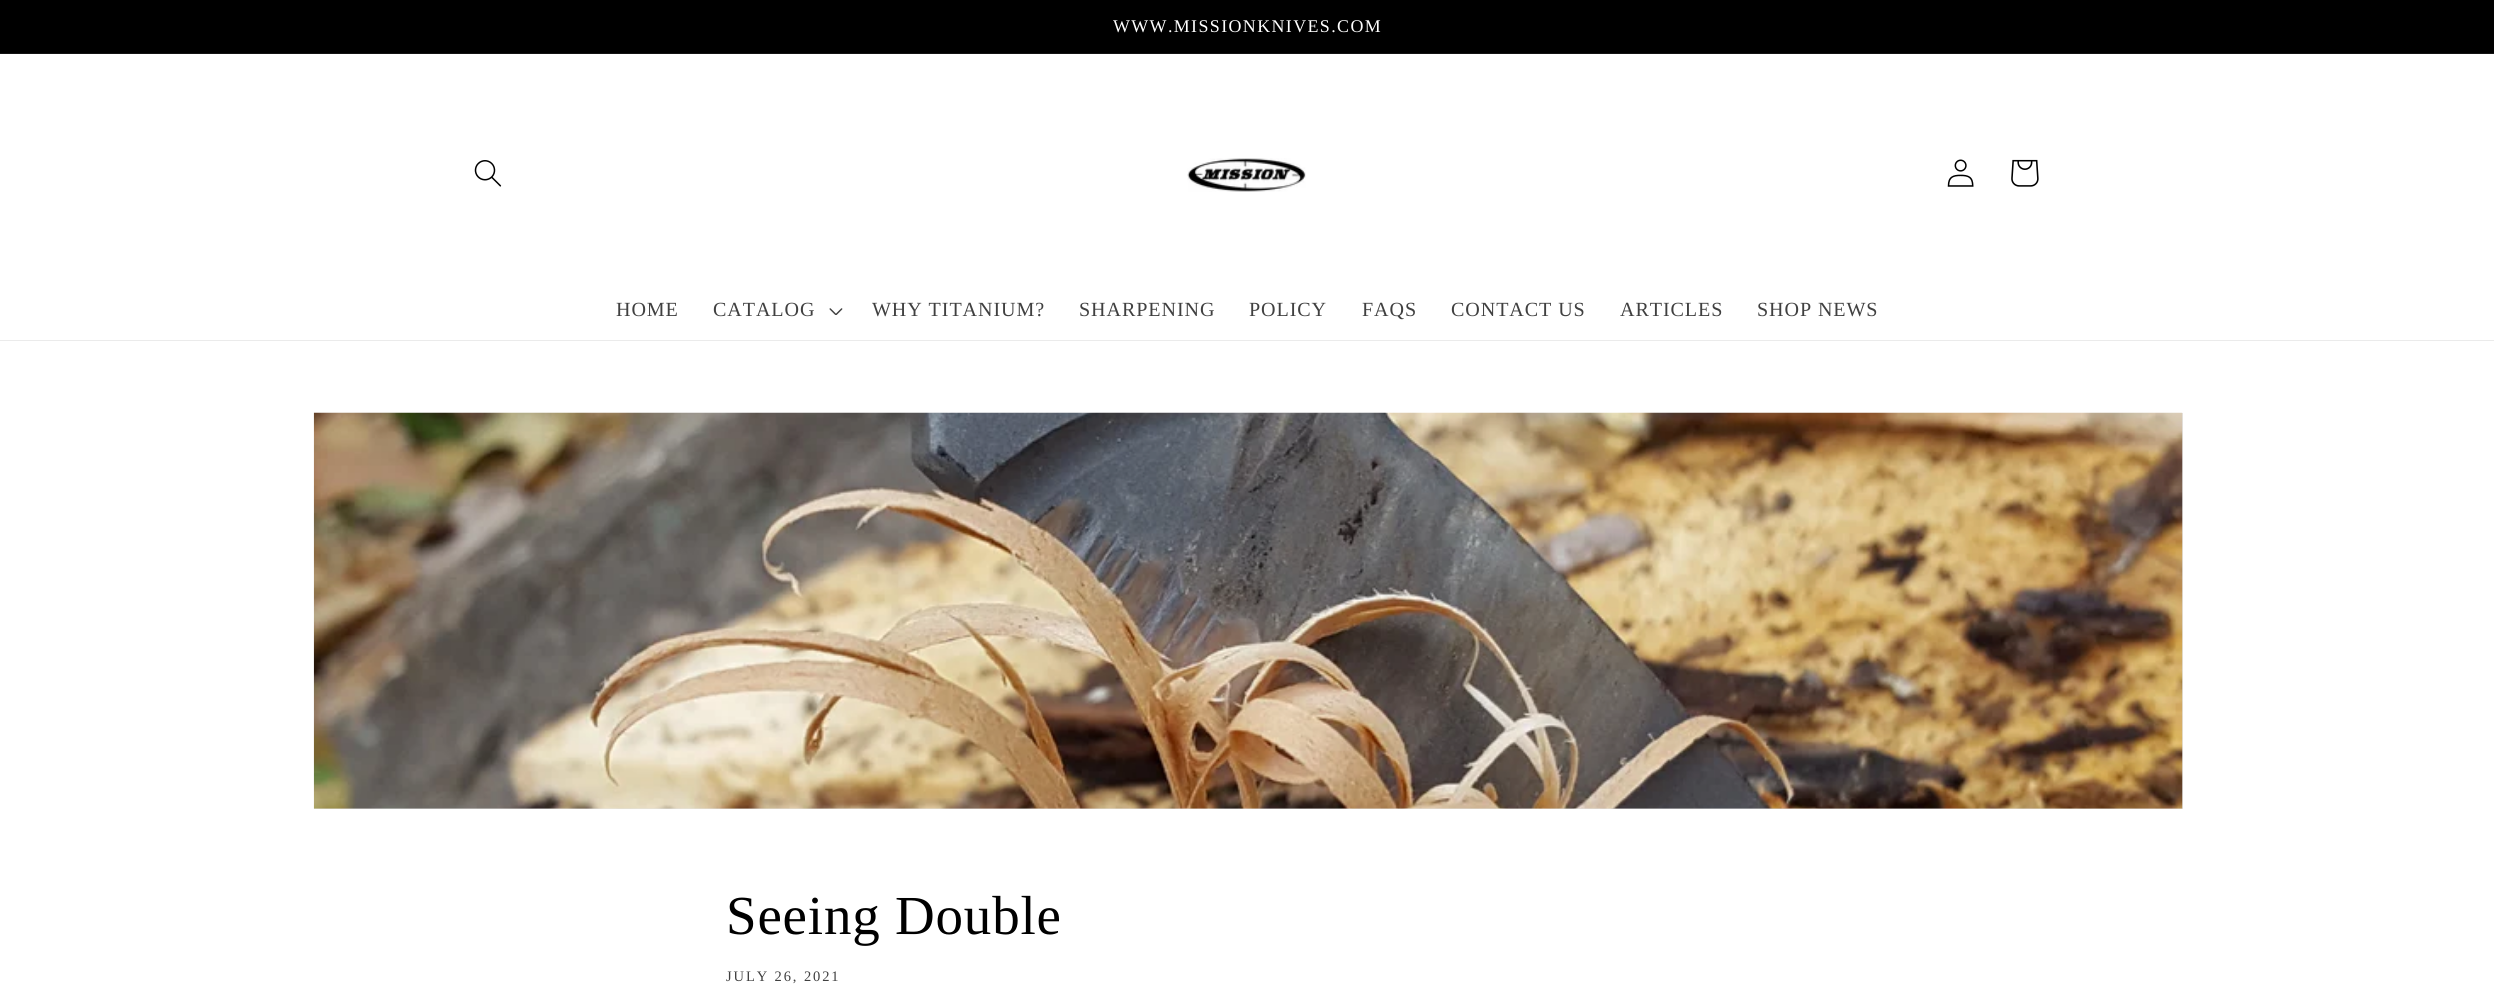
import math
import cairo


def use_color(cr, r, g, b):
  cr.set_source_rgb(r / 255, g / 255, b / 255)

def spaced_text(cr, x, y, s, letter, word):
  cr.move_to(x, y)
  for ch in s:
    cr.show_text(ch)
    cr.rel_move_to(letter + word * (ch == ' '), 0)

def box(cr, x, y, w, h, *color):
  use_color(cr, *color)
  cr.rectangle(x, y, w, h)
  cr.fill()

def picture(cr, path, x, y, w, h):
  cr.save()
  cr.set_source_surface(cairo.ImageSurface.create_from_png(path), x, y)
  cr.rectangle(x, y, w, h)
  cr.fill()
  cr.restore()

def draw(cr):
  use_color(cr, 255, 255, 255)
  cr.paint()
  box(cr, 0, 0, 2494, 53, 0, 0, 0)
  box(cr, 0, 53, 2494, 1, 20, 20, 20)
  box(cr, 0, 340, 2494, 1, 235, 235, 235)
  picture(cr, "img_01.png", 474, 160, 28, 27)
  picture(cr, "img_02.png", 1187, 158, 119, 34)
  picture(cr, "img_03.png", 1947, 159, 27, 28)
  picture(cr, "img_04.png", 2011, 159, 28, 28)
  picture(cr, "img_05.png", 829, 308, 14, 7)
  box(cr, 314, 413, 1869, 396, 230, 230, 230)
  picture(cr, "img_06.png", 313, 412, 1870, 397)
  cr.select_font_face("Liberation Serif")
  cr.set_font_size(17.9)
  use_color(cr, 255, 255, 255)
  spaced_text(cr, 1113, 32, "WWW.MISSIONKNIVES.COM", 1.4, 0)
  cr.set_font_size(20.1)
  use_color(cr, 64, 64, 64)
  spaced_text(cr, 616, 316, "HOME", 0.9, 0)
  spaced_text(cr, 713, 316, "CATALOG", 0.9, 0)
  spaced_text(cr, 872, 316, "WHY TITANIUM?", 0.9, 0)
  spaced_text(cr, 1079, 316, "SHARPENING", 0.9, 0)
  spaced_text(cr, 1249, 316, "POLICY", 0.9, 0)
  spaced_text(cr, 1362, 316, "FAQS", 0.9, 0)
  spaced_text(cr, 1451, 316, "CONTACT US", 0.9, 0)
  spaced_text(cr, 1620, 316, "ARTICLES", 0.9, 0)
  spaced_text(cr, 1757, 316, "SHOP NEWS", 0.9, 0)
  cr.set_font_size(55)
  use_color(cr, 0, 0, 0)
  spaced_text(cr, 726, 934, "Seeing Double", 0.8, 0)
  cr.set_font_size(14.5)
  use_color(cr, 64, 64, 64)
  spaced_text(cr, 726, 981, "JULY 26, 2021", 1.9, 0)


surface = cairo.ImageSurface(cairo.FORMAT_RGB24, 2494, 995)
cr = cairo.Context(surface)
options = cairo.FontOptions()
options.set_hint_metrics(cairo.HINT_METRICS_OFF)
options.set_hint_style(cairo.HINT_STYLE_NONE)
cr.set_font_options(options)
cr.set_miter_limit(4)
draw(cr)
surface.write_to_png("out.png")
